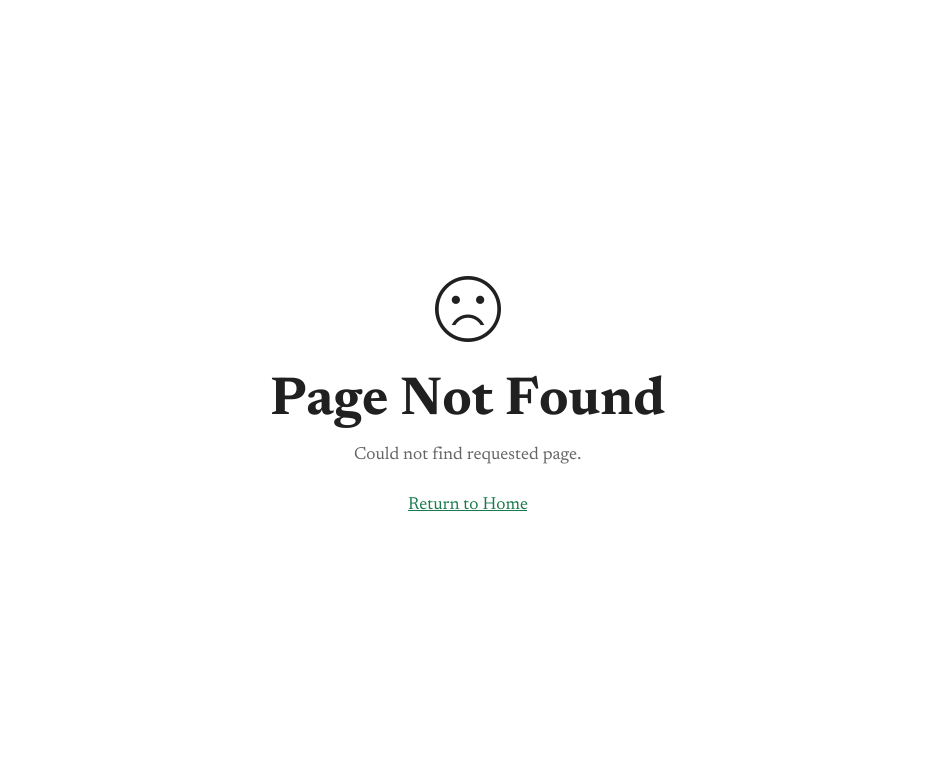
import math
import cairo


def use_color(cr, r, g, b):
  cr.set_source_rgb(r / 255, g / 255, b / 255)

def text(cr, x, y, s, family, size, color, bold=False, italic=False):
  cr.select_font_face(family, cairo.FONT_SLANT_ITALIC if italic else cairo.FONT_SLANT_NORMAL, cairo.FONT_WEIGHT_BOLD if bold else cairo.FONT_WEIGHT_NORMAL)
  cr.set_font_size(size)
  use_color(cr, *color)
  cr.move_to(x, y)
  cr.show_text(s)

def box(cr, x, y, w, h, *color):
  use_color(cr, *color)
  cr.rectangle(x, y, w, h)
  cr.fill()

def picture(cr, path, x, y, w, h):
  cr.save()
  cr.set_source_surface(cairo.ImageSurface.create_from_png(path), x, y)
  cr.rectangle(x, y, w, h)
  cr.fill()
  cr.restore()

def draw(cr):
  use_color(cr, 255, 255, 255)
  cr.paint()
  picture(cr, "img_01.png", 435, 276, 66, 66)
  box(cr, 408, 510, 119, 1, 24, 121, 78)
  text(cr, 270, 414, "Page Not Found", "Newsreader", 53.75, (32, 32, 32), bold=True)
  text(cr, 354, 459, "Could not find requested page.", "Newsreader", 17.4, (100, 100, 100))
  text(cr, 408, 509, "Return to Home", "Newsreader", 17.4, (24, 121, 78))


surface = cairo.ImageSurface(cairo.FORMAT_RGB24, 935, 783)
cr = cairo.Context(surface)
options = cairo.FontOptions()
options.set_hint_metrics(cairo.HINT_METRICS_OFF)
options.set_hint_style(cairo.HINT_STYLE_NONE)
cr.set_font_options(options)
cr.set_miter_limit(4)
draw(cr)
surface.write_to_png("out.png")
